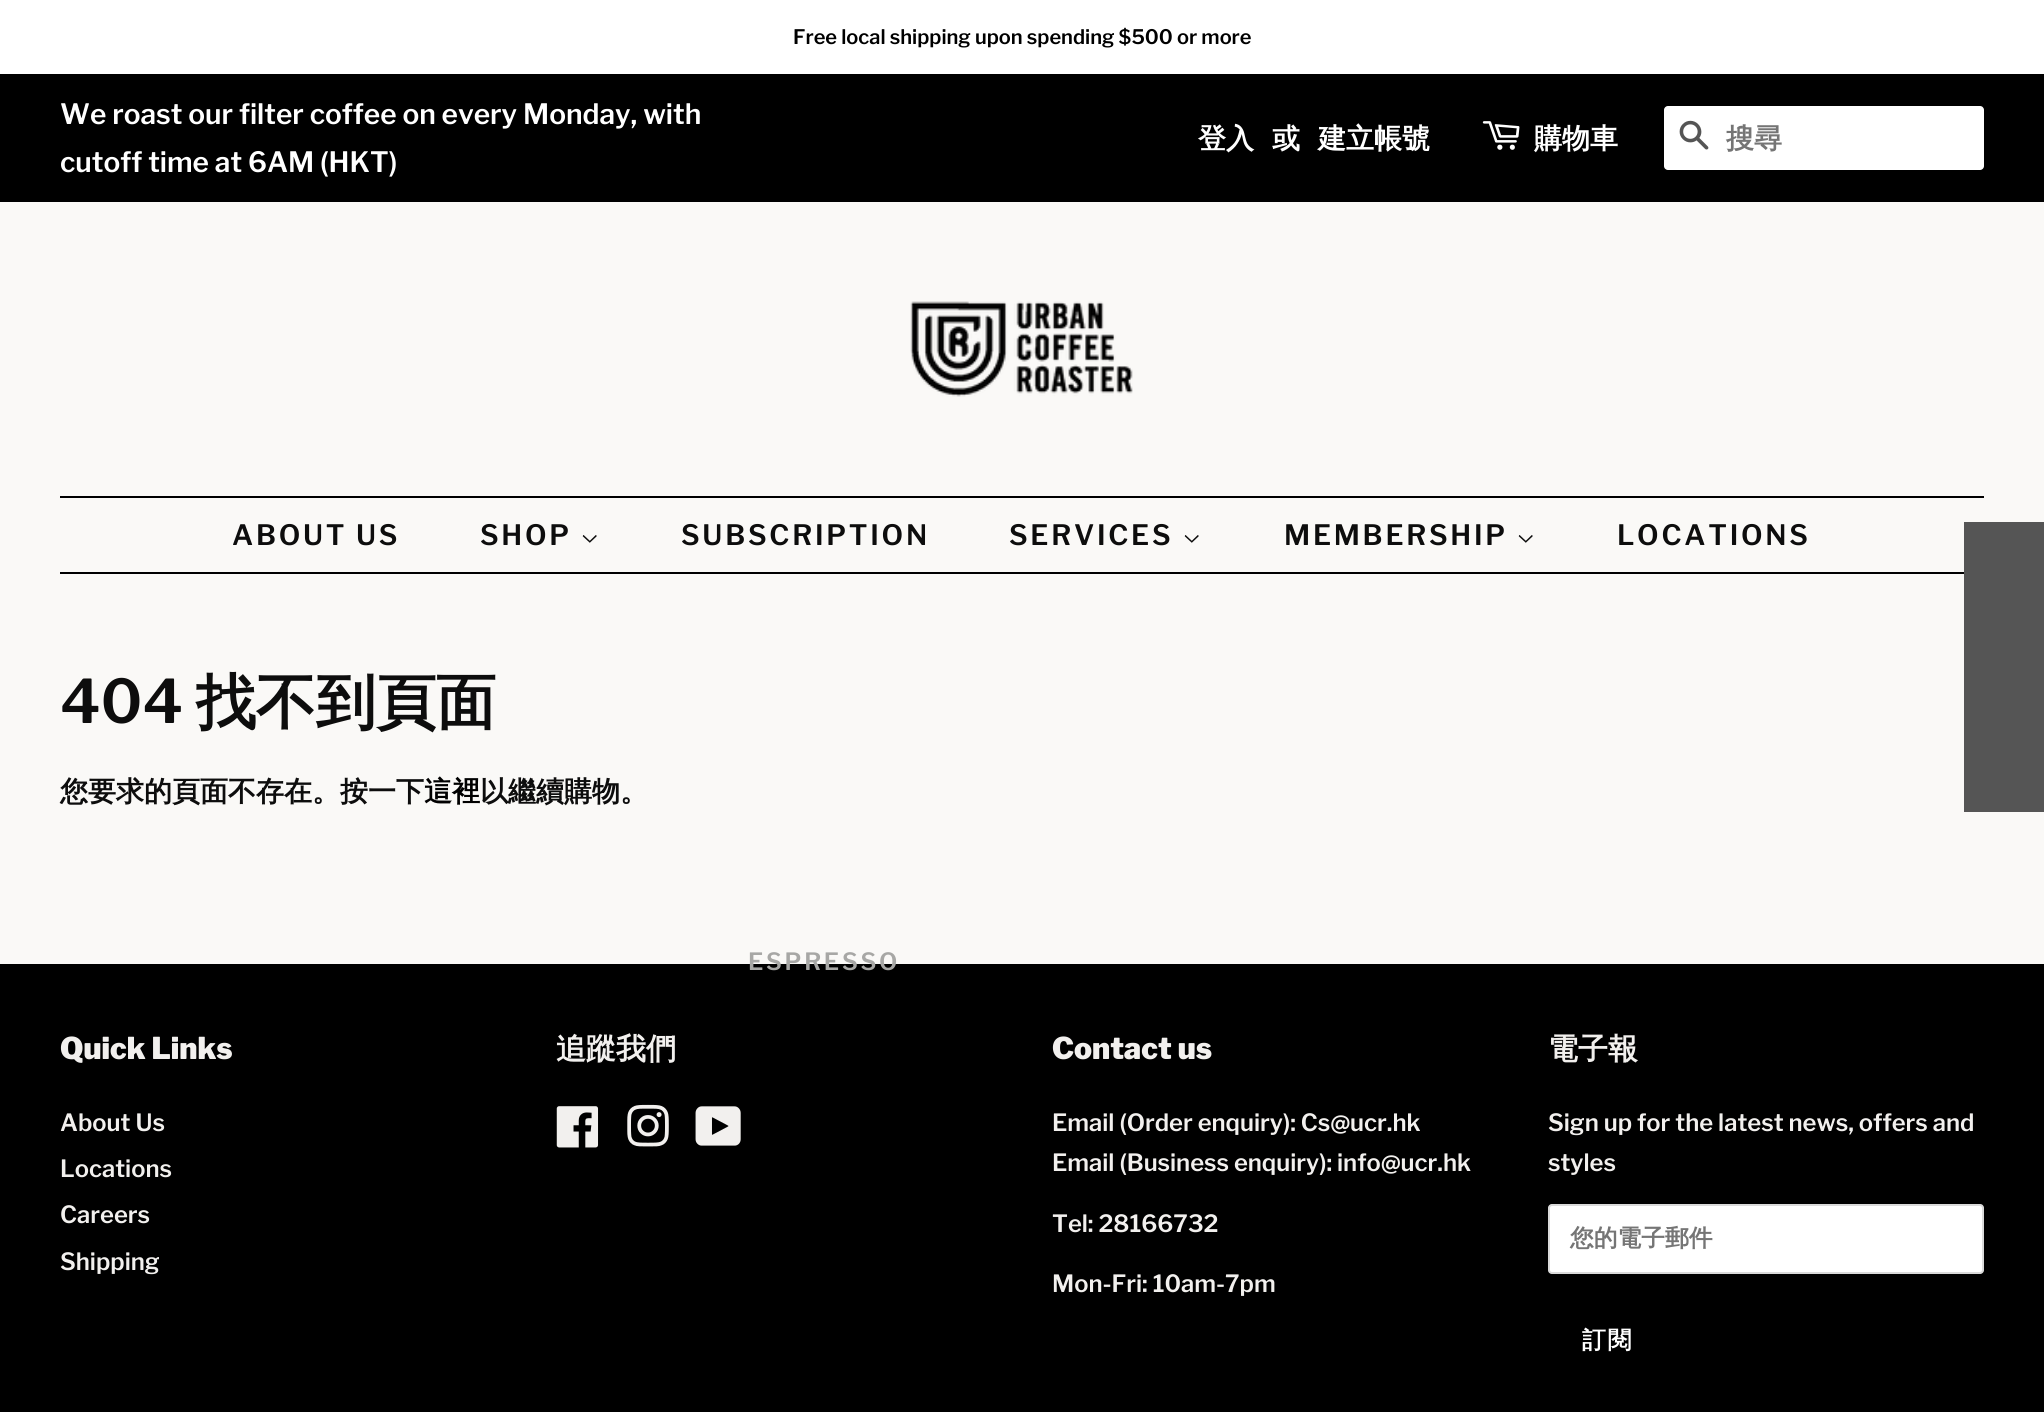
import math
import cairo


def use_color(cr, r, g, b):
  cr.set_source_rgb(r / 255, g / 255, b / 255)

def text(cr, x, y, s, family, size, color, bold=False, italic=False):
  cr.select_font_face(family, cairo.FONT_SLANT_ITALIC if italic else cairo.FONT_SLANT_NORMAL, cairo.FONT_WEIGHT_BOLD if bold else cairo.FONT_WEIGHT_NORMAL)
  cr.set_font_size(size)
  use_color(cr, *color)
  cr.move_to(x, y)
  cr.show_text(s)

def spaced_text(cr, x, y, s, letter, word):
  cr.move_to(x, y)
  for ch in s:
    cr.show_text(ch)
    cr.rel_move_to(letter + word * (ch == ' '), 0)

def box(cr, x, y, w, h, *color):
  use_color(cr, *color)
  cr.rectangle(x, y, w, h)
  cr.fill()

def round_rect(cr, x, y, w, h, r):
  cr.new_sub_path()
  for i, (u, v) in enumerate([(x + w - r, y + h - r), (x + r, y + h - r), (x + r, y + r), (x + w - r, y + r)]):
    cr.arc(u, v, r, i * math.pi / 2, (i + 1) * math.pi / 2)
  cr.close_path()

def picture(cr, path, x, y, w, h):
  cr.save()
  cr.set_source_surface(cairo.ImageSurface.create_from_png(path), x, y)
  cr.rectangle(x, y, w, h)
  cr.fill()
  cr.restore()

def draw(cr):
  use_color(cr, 250, 249, 247)
  cr.paint()
  box(cr, 0, 0, 2044, 74, 255, 255, 255)
  box(cr, 0, 74, 2044, 128, 0, 0, 0)
  picture(cr, "img_01.png", 1482, 121, 38, 29)
  use_color(cr, 255, 255, 255)
  round_rect(cr, 1664, 106, 320, 64, 4)
  cr.fill()
  picture(cr, "img_02.png", 1679, 120, 30, 30)
  picture(cr, "img_03.png", 910, 301, 223, 96)
  box(cr, 60, 496, 1924, 2, 0, 0, 0)
  box(cr, 60, 572, 1904, 2, 0, 0, 0)
  picture(cr, "img_04.png", 582, 535, 15, 8)
  picture(cr, "img_04.png", 1184, 535, 15, 8)
  picture(cr, "img_04.png", 1518, 535, 15, 8)
  box(cr, 1964, 522, 80, 290, 85, 85, 85)
  box(cr, 0, 964, 2044, 448, 0, 0, 0)
  picture(cr, "img_05.png", 556, 1106, 43, 42)
  picture(cr, "img_06.png", 627, 1104, 42, 43)
  picture(cr, "img_07.png", 695, 1106, 46, 40)
  use_color(cr, 255, 255, 255)
  round_rect(cr, 1548, 1204, 436, 70, 4)
  cr.fill()
  round_rect(cr, 1549, 1205, 434, 68, 3)
  cr.set_source_rgba(0.051, 0.051, 0.051, 0.15)
  cr.stroke()
  text(cr, 793, 44, "Free local shipping upon spending $500 or more", "Libre Franklin SemiBold", 20, (0, 0, 0))
  text(cr, 60, 124, "We roast our filter coffee on every Monday, with", "Libre Franklin SemiBold", 28, (255, 255, 255))
  text(cr, 60, 172, "cutoff time at 6AM (HKT)", "Libre Franklin SemiBold", 28, (255, 255, 255))
  text(cr, 1198, 148, "登入", "WenQuanYi Zen Hei", 28, (255, 255, 255), bold=True)
  text(cr, 1272, 148, "或", "WenQuanYi Zen Hei", 28, (255, 255, 255), bold=True)
  text(cr, 1318, 148, "建立帳號", "WenQuanYi Zen Hei", 28, (255, 255, 255), bold=True)
  text(cr, 1534, 148, "購物車", "WenQuanYi Zen Hei", 28, (255, 255, 255), bold=True)
  text(cr, 1726, 148, "搜尋", "WenQuanYi Zen Hei", 28, (117, 117, 117), bold=True)
  cr.select_font_face("Libre Franklin SemiBold")
  use_color(cr, 13, 13, 13)
  spaced_text(cr, 232, 545, "ABOUT US", 2.75, 0)
  spaced_text(cr, 480, 545, "SHOP", 2.75, 0)
  cr.set_font_size(23.75)
  use_color(cr, 167, 167, 165)
  spaced_text(cr, 748, 970, "ESPRESSO", 2.75, 0)
  cr.set_font_size(28)
  use_color(cr, 13, 13, 13)
  spaced_text(cr, 681, 545, "SUBSCRIPTION", 2.75, 0)
  spaced_text(cr, 1009, 545, "SERVICES", 2.75, 0)
  spaced_text(cr, 1284, 545, "MEMBERSHIP", 2.75, 0)
  spaced_text(cr, 1617, 545, "LOCATIONS", 2.75, 0)
  text(cr, 60, 723, "404", "Libre Franklin SemiBold", 60, (13, 13, 13))
  text(cr, 196, 723, "找不到頁面", "WenQuanYi Zen Hei", 60, (13, 13, 13), bold=True)
  text(cr, 60, 801, "您要求的頁面不存在。按一下", "WenQuanYi Zen Hei", 28, (13, 13, 13), bold=True)
  text(cr, 424, 801, "這裡", "WenQuanYi Zen Hei", 28, (0, 0, 0), bold=True)
  text(cr, 480, 801, "以繼續購物。", "WenQuanYi Zen Hei", 28, (13, 13, 13), bold=True)
  text(cr, 60, 1059, "Quick Links", "Libre Franklin Black", 30, (242, 240, 238))
  text(cr, 60, 1131, "About Us", "Libre Franklin SemiBold", 23.75, (242, 240, 238))
  text(cr, 60, 1177, "Locations", "Libre Franklin SemiBold", 23.75, (242, 240, 238))
  text(cr, 60, 1223, "Careers", "Libre Franklin SemiBold", 23.75, (242, 240, 238))
  text(cr, 60, 1270, "Shipping", "Libre Franklin SemiBold", 23.75, (242, 240, 238))
  text(cr, 556, 1059, "追蹤我們", "WenQuanYi Zen Hei", 30, (242, 240, 238), bold=True)
  text(cr, 1052, 1059, "Contact us", "Libre Franklin Black", 30, (242, 240, 238))
  text(cr, 1052, 1131, "Email (Order enquiry): Cs@ucr.hk", "Libre Franklin SemiBold", 23.75, (242, 240, 238))
  text(cr, 1052, 1171, "Email (Business enquiry): info@ucr.hk", "Libre Franklin SemiBold", 23.75, (242, 240, 238))
  text(cr, 1052, 1232, "Tel: 28166732", "Libre Franklin SemiBold", 23.75, (242, 240, 238))
  text(cr, 1052, 1292, "Mon-Fri: 10am-7pm", "Libre Franklin SemiBold", 23.75, (242, 240, 238))
  text(cr, 1548, 1059, "電子報", "WenQuanYi Zen Hei", 30, (242, 240, 238), bold=True)
  text(cr, 1548, 1131, "Sign up for the latest news, offers and", "Libre Franklin SemiBold", 23.75, (242, 240, 238))
  text(cr, 1548, 1171, "styles", "Libre Franklin SemiBold", 23.75, (242, 240, 238))
  text(cr, 1570, 1246, "您的電子郵件", "WenQuanYi Zen Hei", 23.75, (117, 117, 117), bold=True)
  use_color(cr, 255, 255, 255)
  spaced_text(cr, 1582, 1348, "訂閱", 2, 0)


surface = cairo.ImageSurface(cairo.FORMAT_RGB24, 2044, 1412)
cr = cairo.Context(surface)
options = cairo.FontOptions()
options.set_hint_metrics(cairo.HINT_METRICS_OFF)
options.set_hint_style(cairo.HINT_STYLE_NONE)
cr.set_font_options(options)
cr.set_miter_limit(4)
draw(cr)
surface.write_to_png("out.png")
